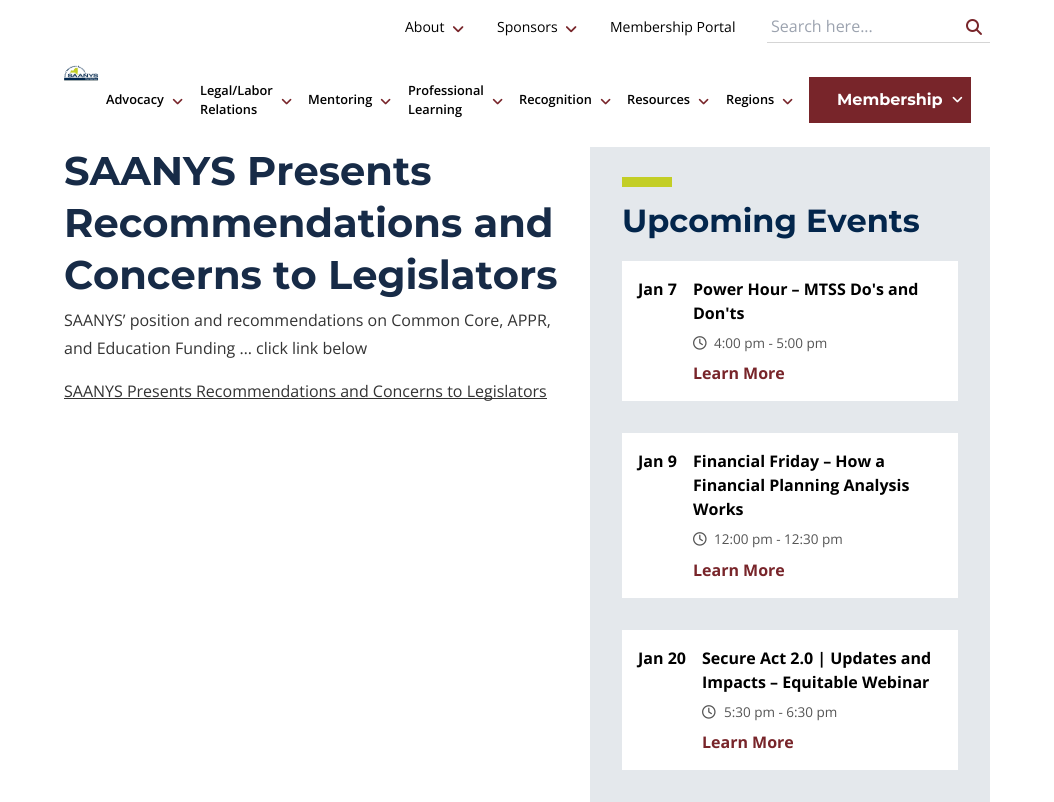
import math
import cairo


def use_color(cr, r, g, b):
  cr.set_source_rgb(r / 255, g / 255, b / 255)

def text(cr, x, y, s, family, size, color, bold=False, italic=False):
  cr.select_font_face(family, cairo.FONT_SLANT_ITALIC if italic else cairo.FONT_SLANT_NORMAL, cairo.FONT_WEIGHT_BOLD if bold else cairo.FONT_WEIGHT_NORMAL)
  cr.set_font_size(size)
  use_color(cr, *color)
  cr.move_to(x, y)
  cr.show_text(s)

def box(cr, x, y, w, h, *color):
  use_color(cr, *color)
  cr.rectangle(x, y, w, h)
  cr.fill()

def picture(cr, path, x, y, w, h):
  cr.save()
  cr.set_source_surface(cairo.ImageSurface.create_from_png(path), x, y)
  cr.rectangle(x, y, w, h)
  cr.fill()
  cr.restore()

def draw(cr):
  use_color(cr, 255, 255, 255)
  cr.paint()
  picture(cr, "img_01.png", 64, 65, 35, 16)
  picture(cr, "img_02.png", 453, 26, 11, 7)
  picture(cr, "img_02.png", 566, 26, 11, 7)
  box(cr, 767, 42, 223, 1, 213, 213, 213)
  picture(cr, "img_03.png", 966, 19, 16, 16)
  picture(cr, "img_04.png", 172, 98, 11, 7)
  picture(cr, "img_04.png", 281, 98, 11, 7)
  picture(cr, "img_04.png", 380, 98, 11, 7)
  picture(cr, "img_04.png", 492, 98, 11, 7)
  picture(cr, "img_04.png", 600, 98, 11, 7)
  picture(cr, "img_04.png", 698, 98, 11, 7)
  picture(cr, "img_04.png", 782, 98, 11, 7)
  box(cr, 809, 77, 162, 46, 120, 37, 42)
  picture(cr, "img_05.png", 952, 96, 11, 7)
  box(cr, 64, 398, 483, 1, 51, 51, 51)
  box(cr, 590, 147, 400, 655, 228, 232, 236)
  box(cr, 622, 177, 50, 10, 195, 206, 38)
  box(cr, 622, 261, 336, 140, 255, 255, 255)
  picture(cr, "img_06.png", 693, 336, 14, 14)
  box(cr, 622, 433, 336, 165, 255, 255, 255)
  picture(cr, "img_06.png", 693, 532, 14, 14)
  box(cr, 622, 630, 336, 140, 255, 255, 255)
  picture(cr, "img_06.png", 702, 705, 14, 14)
  text(cr, 405, 32, "About", "Open Sans", 14, (0, 0, 0))
  text(cr, 497, 32, "Sponsors", "Open Sans", 14, (0, 0, 0))
  text(cr, 610, 32, "Membership Portal", "Open Sans", 14, (0, 0, 0))
  text(cr, 771, 32, "Search here...", "Open Sans", 16, (156, 163, 175))
  text(cr, 106, 104, "Advocacy", "Open Sans SemiBold", 12.75, (0, 0, 0))
  text(cr, 200, 95, "Legal/Labor", "Open Sans SemiBold", 12.75, (0, 0, 0))
  text(cr, 200, 114, "Relations", "Open Sans SemiBold", 12.75, (0, 0, 0))
  text(cr, 308, 104, "Mentoring", "Open Sans SemiBold", 12.75, (0, 0, 0))
  text(cr, 408, 95, "Professional", "Open Sans SemiBold", 12.75, (0, 0, 0))
  text(cr, 408, 114, "Learning", "Open Sans SemiBold", 12.75, (0, 0, 0))
  text(cr, 519, 104, "Recognition", "Open Sans SemiBold", 12.75, (0, 0, 0))
  text(cr, 627, 104, "Resources", "Open Sans SemiBold", 12.75, (0, 0, 0))
  text(cr, 726, 104, "Regions", "Open Sans SemiBold", 12.75, (0, 0, 0))
  text(cr, 837, 105, "Membership", "Montserrat", 16, (255, 255, 255), bold=True)
  text(cr, 64, 185, "SAANYS Presents", "Montserrat", 40, (23, 43, 71), bold=True)
  text(cr, 64, 237, "Recommendations and", "Montserrat", 40, (23, 43, 71), bold=True)
  text(cr, 64, 289, "Concerns to Legislators", "Montserrat", 40, (23, 43, 71), bold=True)
  text(cr, 64, 326, "SAANYS’ position and recommendations on Common Core, APPR,", "Open Sans", 16, (51, 51, 51))
  text(cr, 64, 354, "and Education Funding … click link below", "Open Sans", 16, (51, 51, 51))
  text(cr, 64, 397, "SAANYS Presents Recommendations and Concerns to Legislators", "Open Sans", 16, (51, 51, 51))
  text(cr, 622, 232, "Upcoming Events", "Montserrat", 32, (3, 38, 76), bold=True)
  text(cr, 638, 295, "Jan 7", "Open Sans", 16, (0, 0, 0), bold=True)
  text(cr, 693, 295, "Power Hour – MTSS Do's and", "Open Sans", 16, (0, 0, 0), bold=True)
  text(cr, 693, 319, "Don'ts", "Open Sans", 16, (0, 0, 0), bold=True)
  text(cr, 714, 348, "4:00 pm - 5:00 pm", "Open Sans", 13.5, (85, 85, 85))
  text(cr, 693, 379, "Learn More", "Open Sans", 16, (120, 37, 42), bold=True)
  text(cr, 638, 467, "Jan 9", "Open Sans", 16, (0, 0, 0), bold=True)
  text(cr, 693, 467, "Financial Friday – How a", "Open Sans", 16, (0, 0, 0), bold=True)
  text(cr, 693, 491, "Financial Planning Analysis", "Open Sans", 16, (0, 0, 0), bold=True)
  text(cr, 693, 515, "Works", "Open Sans", 16, (0, 0, 0), bold=True)
  text(cr, 714, 544, "12:00 pm - 12:30 pm", "Open Sans", 13.5, (85, 85, 85))
  text(cr, 693, 576, "Learn More", "Open Sans", 16, (120, 37, 42), bold=True)
  text(cr, 638, 664, "Jan 20", "Open Sans", 16, (0, 0, 0), bold=True)
  text(cr, 702, 664, "Secure Act 2.0 | Updates and", "Open Sans", 16, (0, 0, 0), bold=True)
  text(cr, 702, 688, "Impacts – Equitable Webinar", "Open Sans", 16, (0, 0, 0), bold=True)
  text(cr, 724, 717, "5:30 pm - 6:30 pm", "Open Sans", 13.5, (85, 85, 85))
  text(cr, 702, 748, "Learn More", "Open Sans", 16, (120, 37, 42), bold=True)


surface = cairo.ImageSurface(cairo.FORMAT_RGB24, 1054, 802)
cr = cairo.Context(surface)
options = cairo.FontOptions()
options.set_hint_metrics(cairo.HINT_METRICS_OFF)
options.set_hint_style(cairo.HINT_STYLE_NONE)
cr.set_font_options(options)
cr.set_miter_limit(4)
draw(cr)
surface.write_to_png("out.png")
